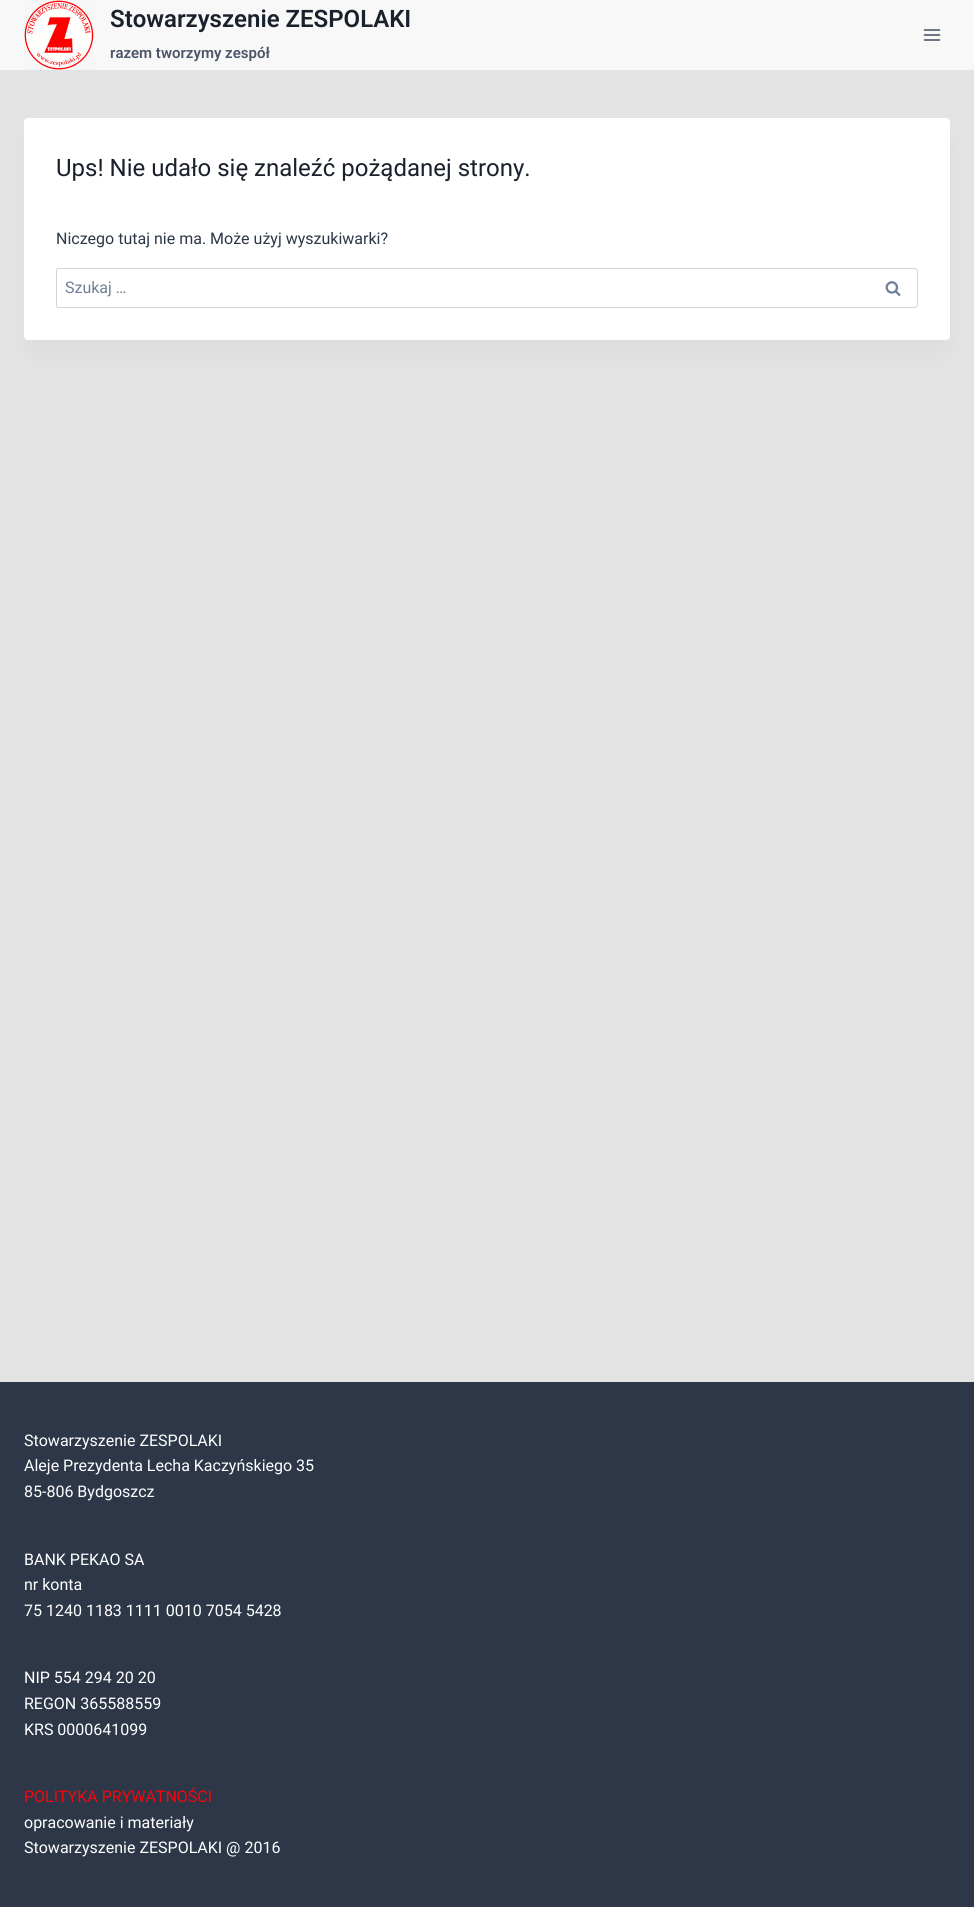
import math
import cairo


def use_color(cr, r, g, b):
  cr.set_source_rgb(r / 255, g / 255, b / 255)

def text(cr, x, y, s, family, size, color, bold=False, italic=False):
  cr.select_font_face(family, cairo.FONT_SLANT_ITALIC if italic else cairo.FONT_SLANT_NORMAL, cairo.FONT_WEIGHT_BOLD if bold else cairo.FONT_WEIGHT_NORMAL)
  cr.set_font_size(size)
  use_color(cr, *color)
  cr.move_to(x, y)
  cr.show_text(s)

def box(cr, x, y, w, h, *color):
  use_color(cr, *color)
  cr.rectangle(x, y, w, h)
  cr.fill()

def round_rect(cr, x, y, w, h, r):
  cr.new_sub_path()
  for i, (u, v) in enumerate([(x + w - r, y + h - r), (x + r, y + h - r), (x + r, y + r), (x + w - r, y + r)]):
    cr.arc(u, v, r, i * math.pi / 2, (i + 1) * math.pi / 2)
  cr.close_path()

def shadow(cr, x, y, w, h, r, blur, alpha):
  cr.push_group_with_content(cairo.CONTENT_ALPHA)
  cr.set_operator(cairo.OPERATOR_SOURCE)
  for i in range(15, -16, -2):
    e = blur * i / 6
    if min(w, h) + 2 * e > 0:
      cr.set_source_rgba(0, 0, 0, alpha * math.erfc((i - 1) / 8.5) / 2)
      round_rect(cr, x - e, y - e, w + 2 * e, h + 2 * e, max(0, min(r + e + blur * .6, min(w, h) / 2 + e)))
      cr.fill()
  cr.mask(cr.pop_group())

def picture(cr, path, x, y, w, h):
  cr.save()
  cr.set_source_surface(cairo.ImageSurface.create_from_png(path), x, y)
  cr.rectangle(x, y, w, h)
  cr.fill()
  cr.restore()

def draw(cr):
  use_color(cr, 227, 227, 227)
  cr.paint()
  box(cr, 0, 0, 974, 70, 248, 248, 248)
  picture(cr, "img_01.png", 24, 0, 70, 70)
  picture(cr, "img_02.png", 923, 29, 18, 12)
  use_color(cr, 0, 0, 0)
  shadow(cr, 34, 143, 906, 202, 0, 12.5, 0.05)
  use_color(cr, 255, 255, 255)
  round_rect(cr, 24, 118, 926, 222, 4)
  cr.fill()
  round_rect(cr, 56.5, 268.5, 861, 39, 2.5)
  use_color(cr, 203, 213, 224)
  cr.set_line_width(1)
  cr.stroke()
  picture(cr, "img_03.png", 885, 281, 16, 15)
  box(cr, 0, 1382, 974, 525, 45, 55, 72)
  text(cr, 110, 27, "Stowarzyszenie ZESPOLAKI", "Roboto SemiBold", 24, (26, 32, 44))
  text(cr, 110, 58, "razem tworzymy zespół", "Roboto SemiBold", 15, (74, 85, 104))
  text(cr, 56, 176, "Ups! Nie udało się znaleźć pożądanej strony.", "Roboto", 24, (26, 32, 44))
  text(cr, 56, 244, "Niczego tutaj nie ma. Może użyj wyszukiwarki?", "Roboto", 16, (45, 55, 72))
  text(cr, 65, 293, "Szukaj …", "Roboto", 16, (113, 128, 150))
  text(cr, 24, 1446, "Stowarzyszenie ZESPOLAKI", "Roboto", 16, (255, 255, 255))
  text(cr, 24, 1471, "Aleje Prezydenta Lecha Kaczyńskiego 35", "Roboto", 16, (255, 255, 255))
  text(cr, 24, 1497, "85-806 Bydgoszcz", "Roboto", 16, (255, 255, 255))
  text(cr, 24, 1565, "BANK PEKAO SA", "Roboto", 16, (255, 255, 255))
  text(cr, 24, 1590, "nr konta", "Roboto", 16, (255, 255, 255))
  text(cr, 24, 1616, "75 1240 1183 1111 0010 7054 5428", "Roboto", 16, (255, 255, 255))
  text(cr, 24, 1683, "NIP 554 294 20 20", "Roboto", 16, (255, 255, 255))
  text(cr, 24, 1709, "REGON 365588559", "Roboto", 16, (255, 255, 255))
  text(cr, 24, 1735, "KRS 0000641099", "Roboto", 16, (255, 255, 255))
  text(cr, 24, 1802, "POLITYKA PRYWATNOŚCI", "Roboto", 16, (245, 6, 11))
  text(cr, 24, 1828, "opracowanie i materiały", "Roboto", 16, (255, 255, 255))
  text(cr, 24, 1853, "Stowarzyszenie ZESPOLAKI @ 2016", "Roboto", 16, (255, 255, 255))


surface = cairo.ImageSurface(cairo.FORMAT_RGB24, 974, 1907)
cr = cairo.Context(surface)
options = cairo.FontOptions()
options.set_hint_metrics(cairo.HINT_METRICS_OFF)
options.set_hint_style(cairo.HINT_STYLE_NONE)
cr.set_font_options(options)
cr.set_miter_limit(4)
draw(cr)
surface.write_to_png("out.png")
